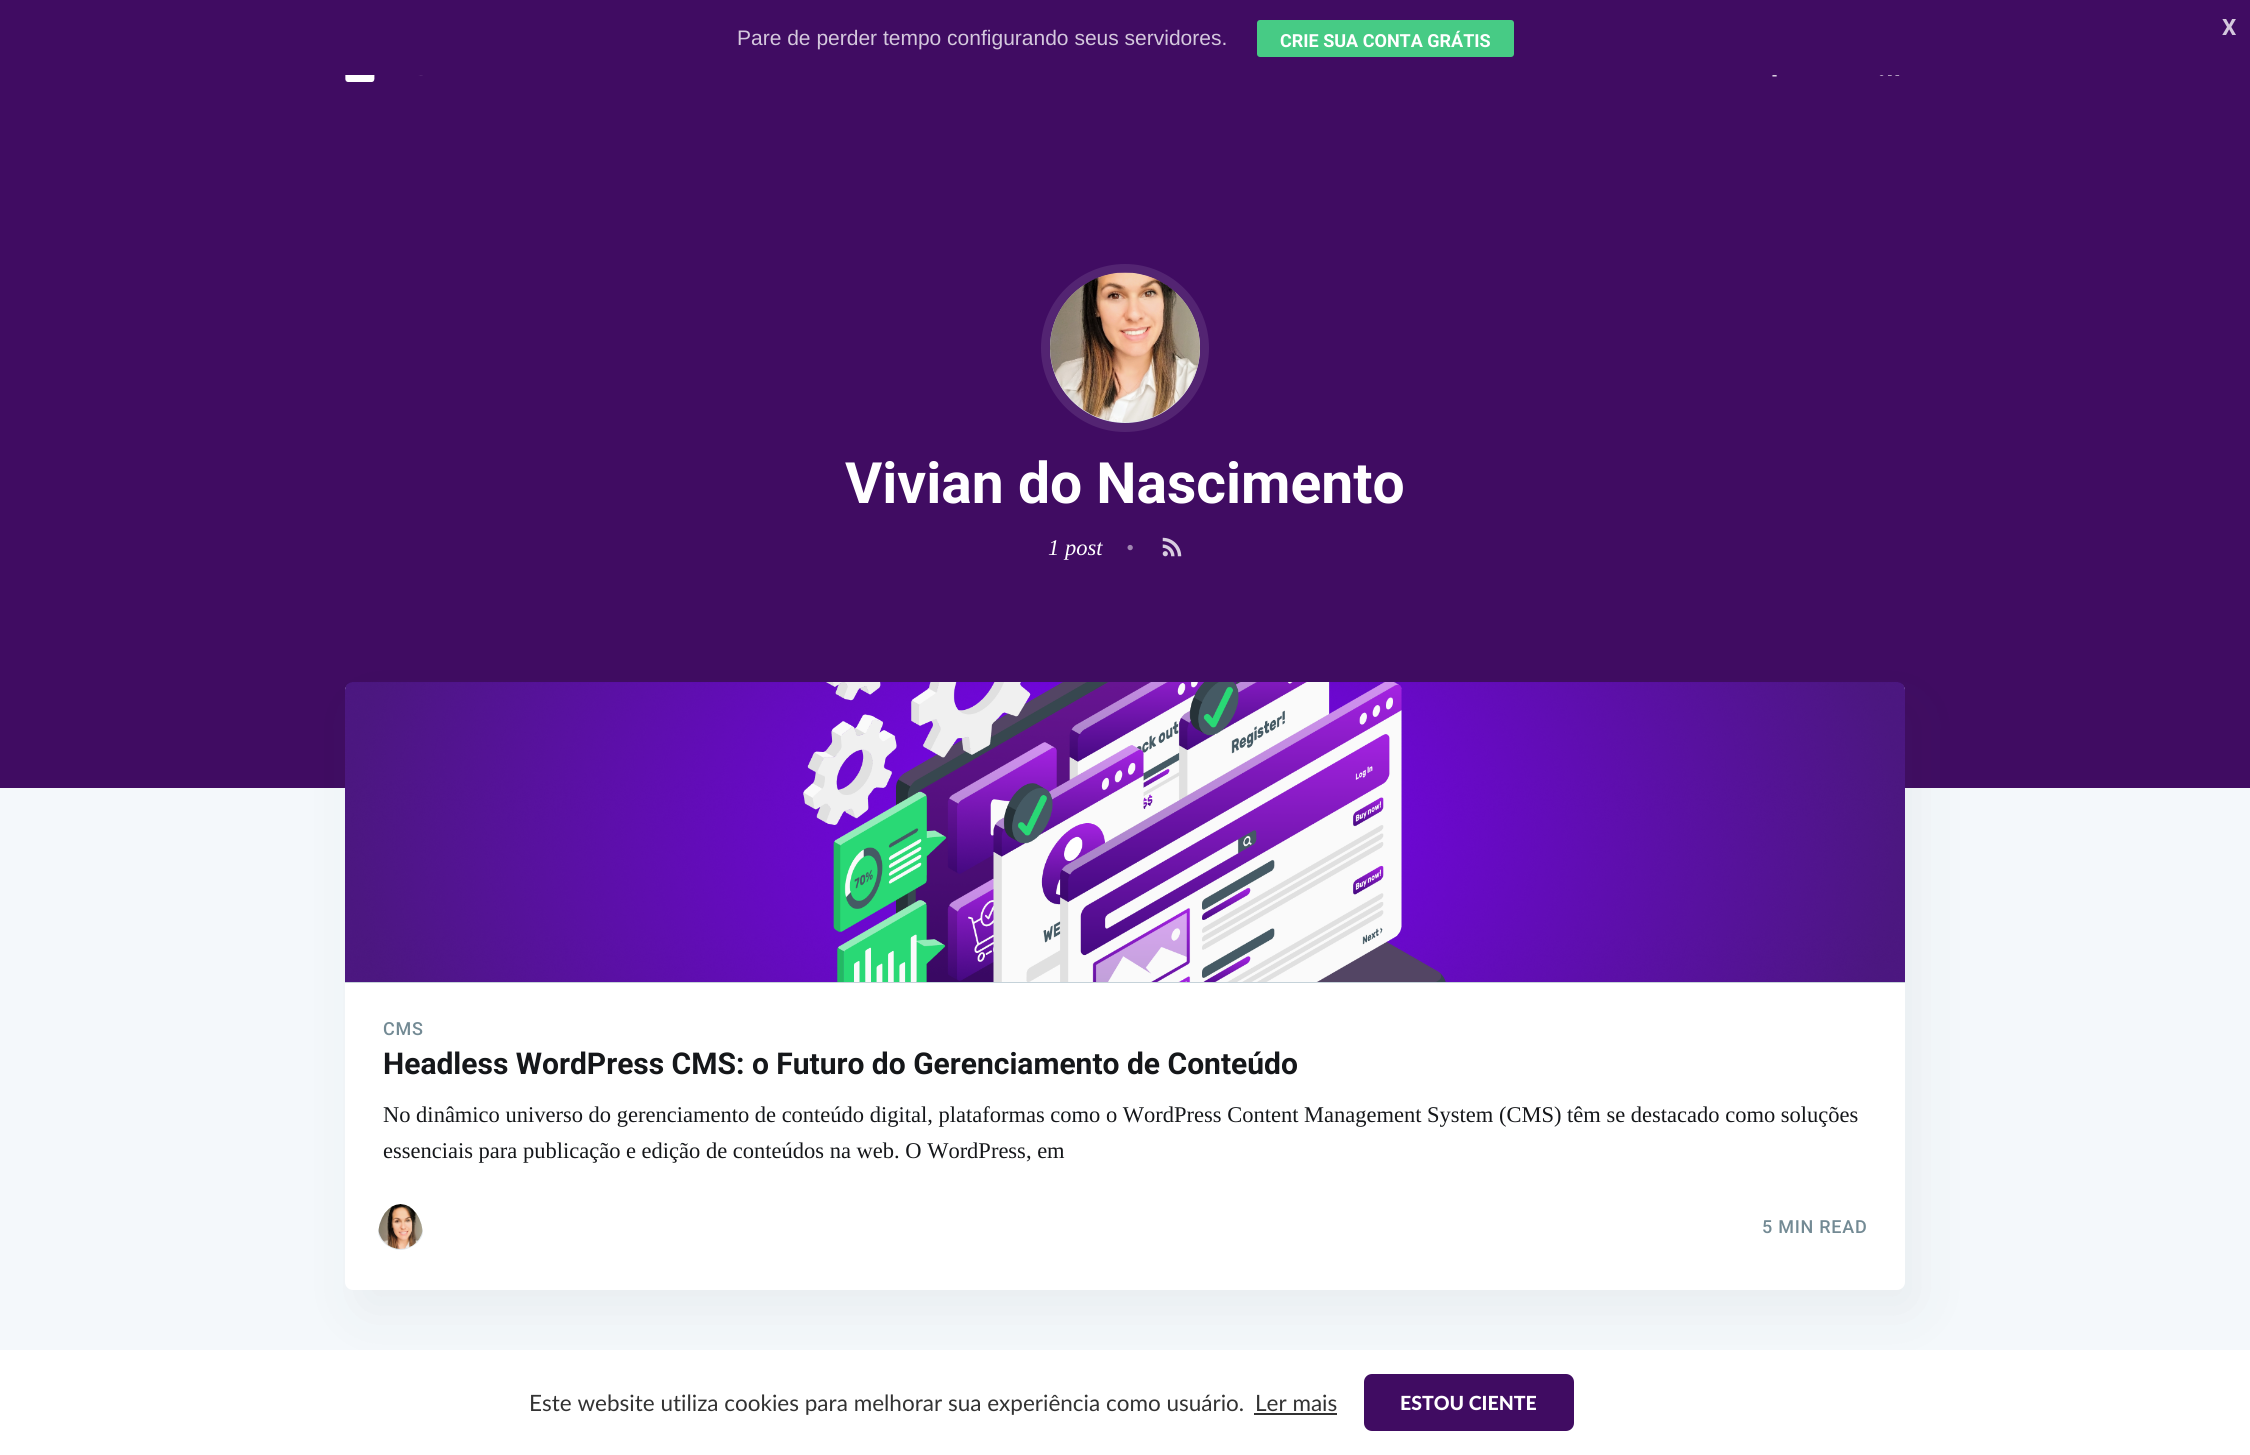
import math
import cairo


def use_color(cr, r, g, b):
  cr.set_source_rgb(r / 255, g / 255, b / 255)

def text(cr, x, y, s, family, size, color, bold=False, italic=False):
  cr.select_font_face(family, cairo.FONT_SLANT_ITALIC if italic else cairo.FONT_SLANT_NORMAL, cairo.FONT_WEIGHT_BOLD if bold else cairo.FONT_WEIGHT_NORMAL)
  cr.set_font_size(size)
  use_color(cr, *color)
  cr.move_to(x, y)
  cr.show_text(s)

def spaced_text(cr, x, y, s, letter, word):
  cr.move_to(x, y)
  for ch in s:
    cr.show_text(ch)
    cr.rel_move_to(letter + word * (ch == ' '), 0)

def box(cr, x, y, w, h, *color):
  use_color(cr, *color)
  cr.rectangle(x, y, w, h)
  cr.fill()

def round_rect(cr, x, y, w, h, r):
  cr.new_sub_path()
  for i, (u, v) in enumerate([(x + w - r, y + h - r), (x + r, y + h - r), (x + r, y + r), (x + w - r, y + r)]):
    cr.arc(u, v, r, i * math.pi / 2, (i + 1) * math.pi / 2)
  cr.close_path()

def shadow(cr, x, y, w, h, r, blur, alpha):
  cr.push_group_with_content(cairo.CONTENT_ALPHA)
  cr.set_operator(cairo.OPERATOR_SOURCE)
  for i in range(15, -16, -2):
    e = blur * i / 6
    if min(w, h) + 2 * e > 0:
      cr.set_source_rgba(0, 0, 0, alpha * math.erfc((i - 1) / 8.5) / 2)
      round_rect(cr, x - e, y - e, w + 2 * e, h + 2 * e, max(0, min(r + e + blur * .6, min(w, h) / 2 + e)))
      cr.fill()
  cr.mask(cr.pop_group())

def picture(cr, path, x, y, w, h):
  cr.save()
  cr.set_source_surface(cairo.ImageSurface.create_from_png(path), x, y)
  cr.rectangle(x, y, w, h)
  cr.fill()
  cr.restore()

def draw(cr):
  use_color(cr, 244, 248, 251)
  cr.paint()
  box(cr, 0, 0, 2250, 788, 64, 12, 98)
  use_color(cr, 71, 203, 133)
  round_rect(cr, 1257, 20, 257, 37, 3)
  cr.fill()
  picture(cr, "img_01.png", 345, 75, 78, 7)
  picture(cr, "img_02.png", 1772, 75, 5, 2)
  picture(cr, "img_03.png", 1879, 75, 21, 1)
  cr.arc(1125, 348, 79.5, 0, 2 * math.pi)
  use_color(cr, 83, 36, 114)
  cr.set_line_width(9)
  cr.stroke()
  use_color(cr, 227, 233, 237)
  cr.arc(1125, 348, 75, 0, 2 * math.pi)
  cr.fill()
  picture(cr, "img_04.png", 1050, 272, 150, 151)
  picture(cr, "img_05.png", 1162, 537, 20, 20)
  use_color(cr, 39, 44, 49)
  shadow(cr, 357, 704, 1560, 607, 8, 28.5, 0.06)
  use_color(cr, 255, 255, 255)
  round_rect(cr, 345, 683, 1560, 607, 8)
  cr.fill()
  use_color(cr, 197, 210, 217)
  cr.new_path()
  cr.move_to(353, 683)
  cr.line_to(1897, 683)
  cr.curve_to(1901.5, 683, 1905, 686.5, 1905, 691)
  cr.line_to(1905, 983)
  cr.line_to(345, 983)
  cr.line_to(345, 691)
  cr.curve_to(345, 686.5, 348.5, 683, 353, 683)
  cr.close_path()
  cr.fill()
  picture(cr, "img_06.png", 345, 682, 1560, 300)
  use_color(cr, 227, 233, 237)
  cr.new_path()
  cr.move_to(400, 1205)
  cr.curve_to(390, 1205, 383, 1214, 380, 1223)
  cr.line_to(378, 1232)
  cr.curve_to(379, 1242, 391, 1250, 400, 1250)
  cr.curve_to(410, 1250, 422, 1242, 423, 1232)
  cr.line_to(421, 1223)
  cr.curve_to(418, 1214, 411, 1205, 400, 1205)
  cr.close_path()
  cr.fill()
  picture(cr, "img_07.png", 378, 1204, 45, 45)
  box(cr, 0, 1350, 2250, 105, 255, 255, 255)
  box(cr, 1254, 1413, 83, 2, 51, 51, 51)
  use_color(cr, 64, 12, 98)
  round_rect(cr, 1364, 1374, 210, 57, 8)
  cr.fill()
  text(cr, 2222, 35, "X", "Roboto", 22.5, (212, 200, 221), bold=True)
  text(cr, 737, 45, "Pare de perder tempo configurando seus servidores.", "Liberation Sans", 21, (212, 200, 221))
  text(cr, 1280, 47, "CRIE SUA CONTA GRÁTIS", "Roboto", 18, (255, 255, 255), bold=True)
  text(cr, 845, 503, "Vivian do Nascimento", "Roboto", 57, (255, 255, 255), bold=True)
  text(cr, 1048, 555, "1 post", "Liberation Serif", 22.5, (255, 255, 255), italic=True)
  text(cr, 1126, 555, "•", "Liberation Serif", 22.5, (160, 134, 177), italic=True)
  cr.select_font_face("Roboto Medium")
  cr.set_font_size(18)
  use_color(cr, 115, 138, 148)
  spaced_text(cr, 383, 1035, "CMS", 0.75, 0)
  text(cr, 383, 1074, "Headless WordPress CMS: o Futuro do Gerenciamento de Conteúdo", "Roboto", 30, (21, 23, 26), bold=True)
  text(cr, 383, 1122, "No dinâmico universo do gerenciamento de conteúdo digital, plataformas como o WordPress Content Management System (CMS) têm se destacado como soluções", "Liberation Serif", 22.5, (21, 23, 26))
  text(cr, 383, 1158, "essenciais para publicação e edição de conteúdos na web. O WordPress, em", "Liberation Serif", 22.5, (21, 23, 26))
  cr.select_font_face("Roboto Medium")
  cr.set_font_size(18)
  use_color(cr, 115, 138, 148)
  spaced_text(cr, 1762, 1233, "5 MIN READ", 0.75, 0)
  text(cr, 529, 1411, "Este website utiliza cookies para melhorar sua experiência como usuário.", "Lato", 22.5, (51, 51, 51))
  text(cr, 1255, 1411, "Ler mais", "Lato", 22.5, (51, 51, 51))
  text(cr, 1400, 1410, "ESTOU CIENTE", "Lato Black", 19.5, (255, 255, 255))


surface = cairo.ImageSurface(cairo.FORMAT_RGB24, 2250, 1455)
cr = cairo.Context(surface)
options = cairo.FontOptions()
options.set_hint_metrics(cairo.HINT_METRICS_OFF)
options.set_hint_style(cairo.HINT_STYLE_NONE)
cr.set_font_options(options)
cr.set_miter_limit(4)
draw(cr)
surface.write_to_png("out.png")
